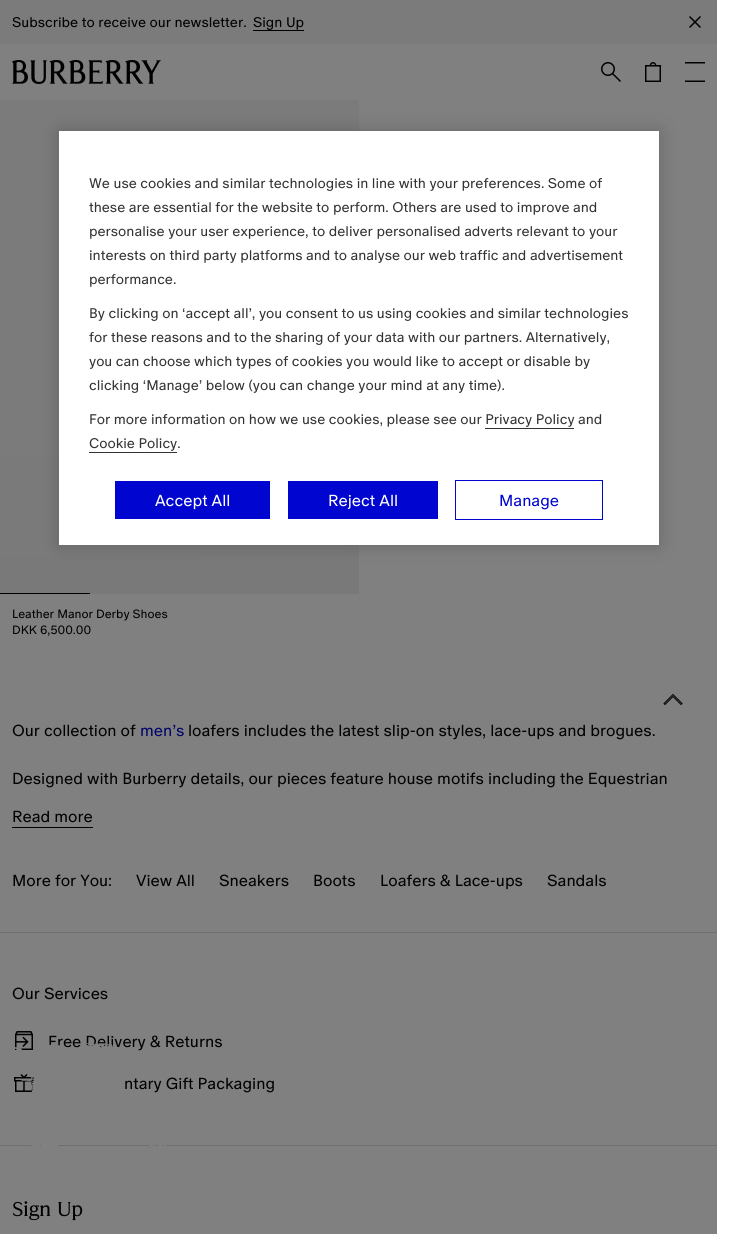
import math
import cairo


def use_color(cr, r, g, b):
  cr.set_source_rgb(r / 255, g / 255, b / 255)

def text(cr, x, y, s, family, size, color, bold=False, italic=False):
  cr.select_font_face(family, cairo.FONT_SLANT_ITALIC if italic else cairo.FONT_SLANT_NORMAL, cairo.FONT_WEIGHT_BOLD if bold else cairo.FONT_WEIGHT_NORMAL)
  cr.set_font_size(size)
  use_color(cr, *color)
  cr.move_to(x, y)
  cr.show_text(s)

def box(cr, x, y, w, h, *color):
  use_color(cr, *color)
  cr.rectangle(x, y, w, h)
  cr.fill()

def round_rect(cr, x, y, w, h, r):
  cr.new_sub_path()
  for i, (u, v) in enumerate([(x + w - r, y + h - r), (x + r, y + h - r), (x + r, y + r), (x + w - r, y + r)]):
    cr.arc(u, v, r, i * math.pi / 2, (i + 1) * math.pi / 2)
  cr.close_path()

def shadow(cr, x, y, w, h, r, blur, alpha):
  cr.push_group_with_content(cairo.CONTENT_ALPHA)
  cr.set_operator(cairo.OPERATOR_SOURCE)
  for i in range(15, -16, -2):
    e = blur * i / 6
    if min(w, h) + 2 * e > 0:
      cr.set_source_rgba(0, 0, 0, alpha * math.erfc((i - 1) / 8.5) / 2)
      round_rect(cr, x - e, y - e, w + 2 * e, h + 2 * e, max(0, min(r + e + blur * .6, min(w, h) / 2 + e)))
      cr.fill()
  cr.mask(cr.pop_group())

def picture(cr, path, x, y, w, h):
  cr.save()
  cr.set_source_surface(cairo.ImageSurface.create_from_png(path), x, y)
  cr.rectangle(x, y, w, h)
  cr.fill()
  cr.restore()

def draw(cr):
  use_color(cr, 255, 255, 255)
  cr.paint()
  box(cr, 0, 44, 717, 1190, 128, 128, 128)
  box(cr, 0, 0, 717, 44, 123, 123, 123)
  box(cr, 253, 30, 51, 1, 0, 0, 0)
  picture(cr, "img_01.png", 689, 16, 12, 12)
  picture(cr, "img_02.png", 12, 60, 149, 24)
  picture(cr, "img_03.png", 601, 62, 20, 20)
  picture(cr, "img_04.png", 645, 62, 16, 20)
  picture(cr, "img_05.png", 685, 62, 20, 20)
  gradient = cairo.LinearGradient(176, 90, 183, 596)
  gradient.add_color_stop_rgba(0.19, 0.482, 0.482, 0.482, 1)
  gradient.add_color_stop_rgba(0.64, 0.482, 0.482, 0.482, 1)
  gradient.add_color_stop_rgba(0.99, 0.475, 0.475, 0.475, 1)
  cr.set_source(gradient)
  cr.rectangle(0, 100, 359, 494)
  cr.fill()
  box(cr, 0, 593, 90, 1, 0, 0, 0)
  cr.new_path()
  cr.move_to(673, 696.5)
  cr.line_to(665, 704.5)
  cr.line_to(664, 703.5)
  cr.line_to(673, 694.5)
  cr.line_to(682, 703.5)
  cr.line_to(681, 704.5)
  cr.close_path()
  cr.set_line_width(1)
  cr.stroke()
  box(cr, 12, 827, 81, 1, 0, 0, 0)
  box(cr, 0, 932, 717, 1, 111, 111, 111)
  box(cr, 0, 1145, 717, 1, 111, 111, 111)
  picture(cr, "img_06.png", 15, 1031, 18, 19)
  picture(cr, "img_07.png", 14, 1074, 20, 18)
  use_color(cr, 0, 0, 0)
  shadow(cr, 59, 131, 600, 414, 0, 9, 0.2)
  box(cr, 59, 131, 600, 414, 255, 255, 255)
  box(cr, 485, 428, 89, 1, 51, 51, 51)
  box(cr, 89, 452, 88, 1, 51, 51, 51)
  box(cr, 115, 481, 155, 38, 0, 6, 207)
  box(cr, 288, 481, 150, 38, 0, 6, 207)
  cr.rectangle(455.5, 480.5, 147, 39)
  cr.stroke()
  text(cr, 12, 27, "Subscribe to receive our newsletter.", "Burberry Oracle", 14, (0, 0, 0))
  text(cr, 253, 27, "Sign Up", "Burberry Oracle", 14, (0, 0, 0))
  text(cr, 12, 618, "Leather Manor Derby Shoes", "Burberry Oracle", 12, (0, 0, 0))
  text(cr, 12, 634, "DKK 6,500.00", "Burberry Oracle", 12, (0, 0, 0))
  text(cr, 12, 736, "Our collection of", "Burberry Oracle", 16, (0, 0, 0))
  text(cr, 140, 736, "men’s", "Burberry Oracle", 16, (0, 3, 104))
  text(cr, 188, 736, "loafers includes the latest slip-on styles, lace-ups and brogues.", "Burberry Oracle", 16, (0, 0, 0))
  text(cr, 12, 784, "Designed with Burberry details, our pieces feature house motifs including the Equestrian", "Burberry Oracle", 16, (0, 0, 0))
  text(cr, 12, 822, "Read more", "Burberry Oracle", 16, (0, 0, 0))
  text(cr, 12, 886, "More for You:", "Burberry Oracle", 16, (0, 0, 0))
  text(cr, 136, 886, "View All", "Burberry Oracle", 16, (0, 0, 0))
  text(cr, 219, 886, "Sneakers", "Burberry Oracle", 16, (0, 0, 0))
  text(cr, 313, 886, "Boots", "Burberry Oracle", 16, (0, 0, 0))
  text(cr, 380, 886, "Loafers & Lace-ups", "Burberry Oracle", 16, (0, 0, 0))
  text(cr, 547, 886, "Sandals", "Burberry Oracle", 16, (0, 0, 0))
  text(cr, 12, 999, "Our Services", "Burberry Oracle", 16, (0, 0, 0))
  text(cr, 48, 1047, "Free Delivery & Returns", "Burberry Oracle", 16, (0, 0, 0))
  text(cr, 124, 1089, "ntary Gift Packaging", "Burberry Oracle", 16, (0, 0, 0))
  picture(cr, "img_08.png", 15, 1043, 151, 103)
  text(cr, 12, 1216, "Sign Up", "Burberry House", 20, (0, 0, 0))
  text(cr, 89, 188, "We use cookies and similar technologies in line with your preferences. Some of", "Burberry Oracle", 14, (51, 51, 51))
  text(cr, 89, 212, "these are essential for the website to perform. Others are used to improve and", "Burberry Oracle", 14, (51, 51, 51))
  text(cr, 89, 236, "personalise your user experience, to deliver personalised adverts relevant to your", "Burberry Oracle", 14, (51, 51, 51))
  text(cr, 89, 260, "interests on third party platforms and to analyse our web traffic and advertisement", "Burberry Oracle", 14, (51, 51, 51))
  text(cr, 89, 284, "performance.", "Burberry Oracle", 14, (51, 51, 51))
  text(cr, 89, 318, "By clicking on ‘accept all’, you consent to us using cookies and similar technologies", "Burberry Oracle", 14, (51, 51, 51))
  text(cr, 89, 342, "for these reasons and to the sharing of your data with our partners. Alternatively,", "Burberry Oracle", 14, (51, 51, 51))
  text(cr, 89, 366, "you can choose which types of cookies you would like to accept or disable by", "Burberry Oracle", 14, (51, 51, 51))
  text(cr, 89, 390, "clicking ‘Manage’ below (you can change your mind at any time).", "Burberry Oracle", 14, (51, 51, 51))
  text(cr, 89, 424, "For more information on how we use cookies, please see our Privacy Policy and", "Burberry Oracle", 14, (51, 51, 51))
  text(cr, 89, 448, "Cookie Policy.", "Burberry Oracle", 14, (51, 51, 51))
  text(cr, 155, 506, "Accept All", "Burberry Oracle", 16, (255, 255, 255))
  text(cr, 328, 506, "Reject All", "Burberry Oracle", 16, (255, 255, 255))
  text(cr, 499, 506, "Manage", "Burberry Oracle", 16, (0, 6, 207))


surface = cairo.ImageSurface(cairo.FORMAT_RGB24, 732, 1234)
cr = cairo.Context(surface)
options = cairo.FontOptions()
options.set_hint_metrics(cairo.HINT_METRICS_OFF)
options.set_hint_style(cairo.HINT_STYLE_NONE)
cr.set_font_options(options)
cr.set_miter_limit(4)
draw(cr)
surface.write_to_png("out.png")
